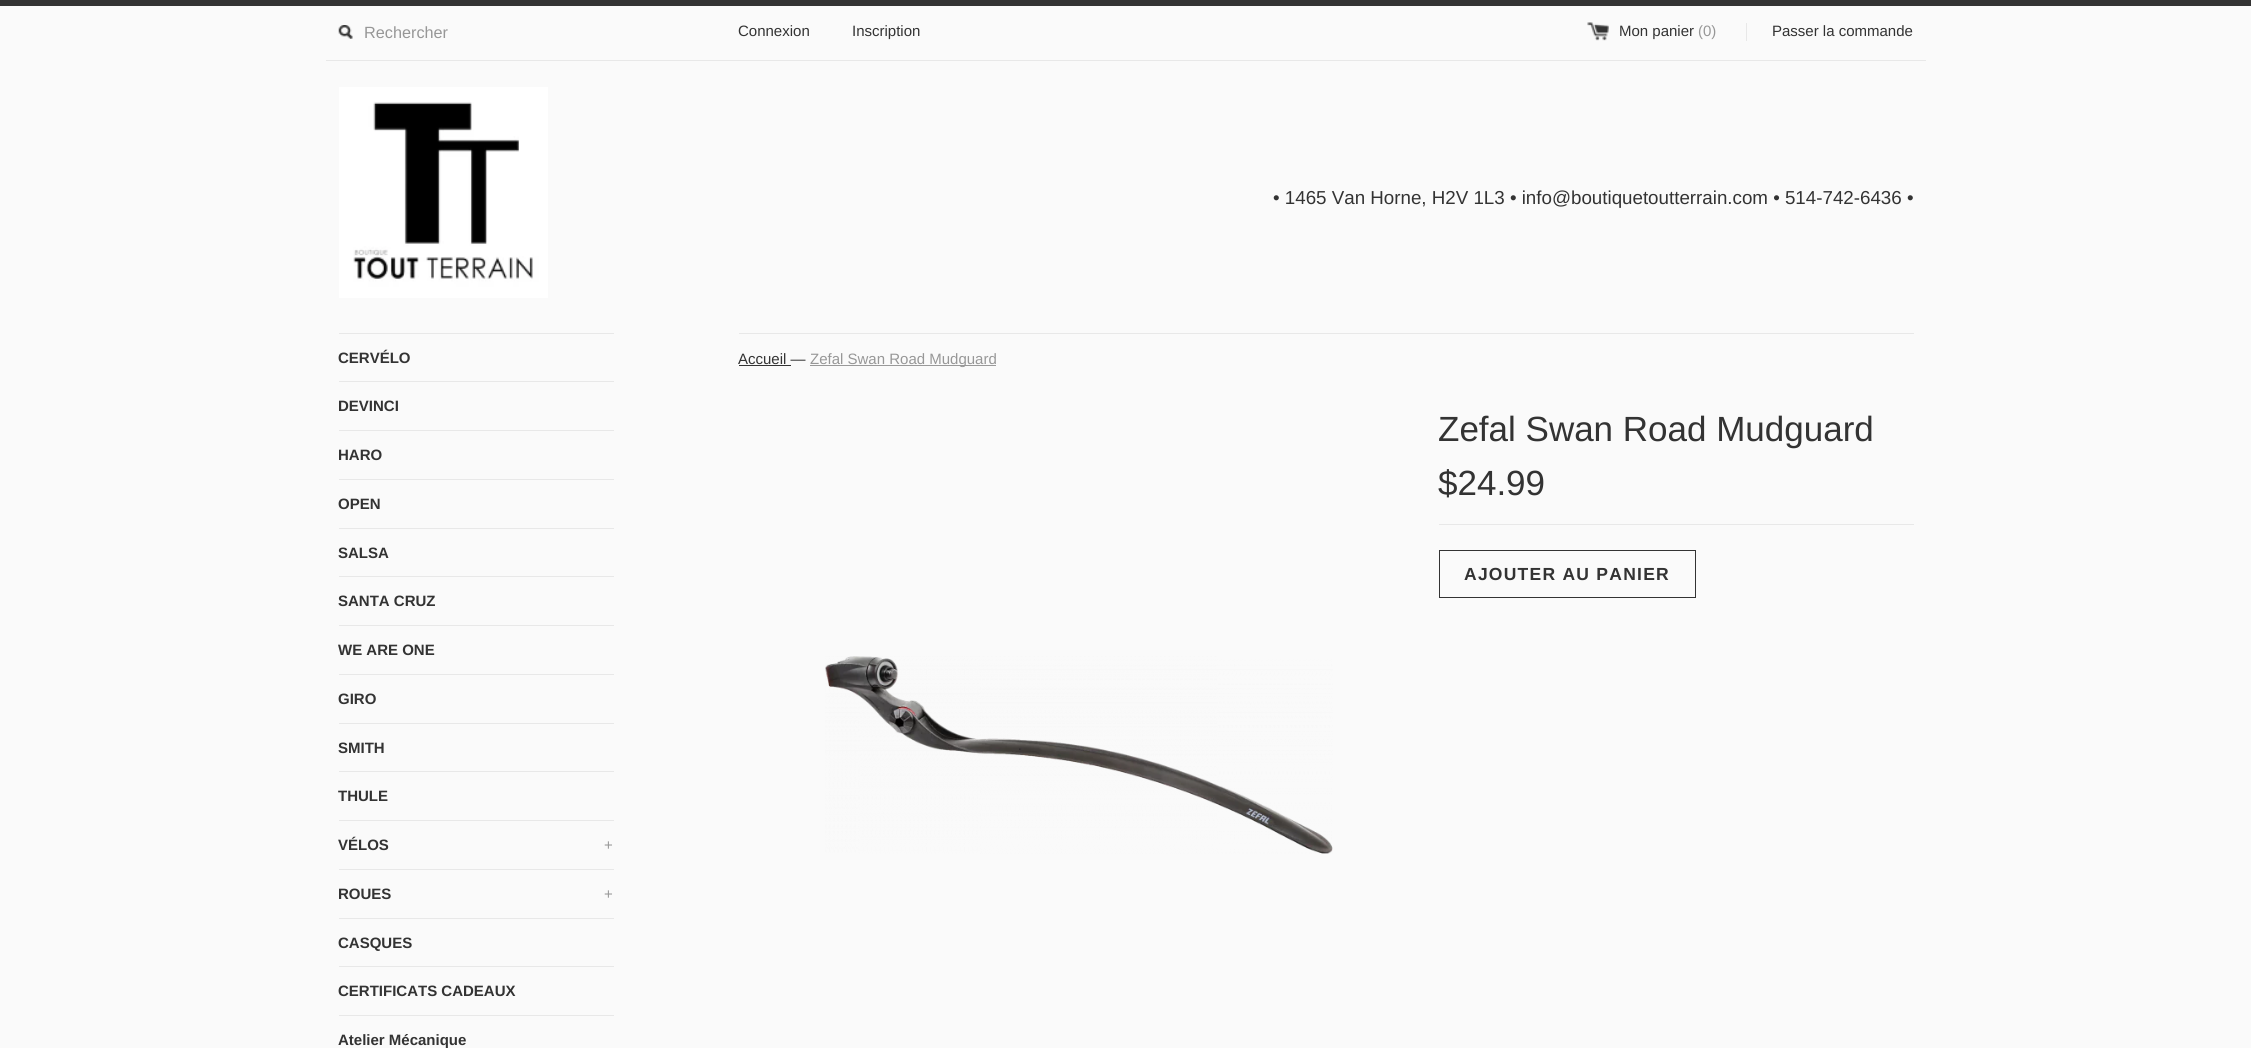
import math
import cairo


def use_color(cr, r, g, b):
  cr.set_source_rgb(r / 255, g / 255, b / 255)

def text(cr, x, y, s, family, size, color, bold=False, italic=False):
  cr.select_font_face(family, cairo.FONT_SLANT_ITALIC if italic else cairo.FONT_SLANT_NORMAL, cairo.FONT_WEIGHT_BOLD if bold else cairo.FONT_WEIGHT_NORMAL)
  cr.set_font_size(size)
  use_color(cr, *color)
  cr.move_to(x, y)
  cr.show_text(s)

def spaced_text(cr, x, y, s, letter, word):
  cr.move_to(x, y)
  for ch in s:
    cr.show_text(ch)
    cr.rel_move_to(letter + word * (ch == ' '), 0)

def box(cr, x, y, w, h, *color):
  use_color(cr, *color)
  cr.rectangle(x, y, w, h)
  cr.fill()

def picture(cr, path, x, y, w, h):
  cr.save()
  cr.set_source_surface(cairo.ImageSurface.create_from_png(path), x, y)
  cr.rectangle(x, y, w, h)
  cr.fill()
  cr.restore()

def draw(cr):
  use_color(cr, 250, 250, 250)
  cr.paint()
  box(cr, 0, 0, 2251, 6, 51, 51, 51)
  box(cr, 326, 60, 1600, 1, 232, 232, 232)
  picture(cr, "img_01.png", 338, 25, 15, 14)
  picture(cr, "img_02.png", 1587, 22, 22, 19)
  box(cr, 1746, 23, 1, 18, 232, 232, 232)
  picture(cr, "img_03.png", 339, 87, 209, 211)
  box(cr, 339, 333, 275, 1, 232, 232, 232)
  box(cr, 339, 381, 275, 1, 232, 232, 232)
  box(cr, 339, 430, 275, 1, 232, 232, 232)
  box(cr, 339, 479, 275, 1, 232, 232, 232)
  box(cr, 339, 528, 275, 1, 232, 232, 232)
  box(cr, 339, 576, 275, 1, 232, 232, 232)
  box(cr, 339, 625, 275, 1, 232, 232, 232)
  box(cr, 339, 674, 275, 1, 232, 232, 232)
  box(cr, 339, 723, 275, 1, 232, 232, 232)
  box(cr, 339, 771, 275, 1, 232, 232, 232)
  box(cr, 339, 820, 275, 1, 232, 232, 232)
  box(cr, 339, 869, 275, 1, 232, 232, 232)
  box(cr, 339, 918, 275, 1, 232, 232, 232)
  box(cr, 339, 966, 275, 1, 232, 232, 232)
  box(cr, 339, 1015, 275, 1, 232, 232, 232)
  box(cr, 739, 333, 1175, 1, 232, 232, 232)
  box(cr, 739, 365, 52, 1, 51, 51, 51)
  box(cr, 810, 365, 186, 1, 153, 153, 153)
  box(cr, 1439, 524, 475, 1, 232, 232, 232)
  cr.rectangle(1439.5, 550.5, 256, 47)
  use_color(cr, 51, 51, 51)
  cr.set_line_width(1)
  cr.stroke()
  picture(cr, "img_04.png", 825, 656, 508, 198)
  text(cr, 364, 38, "Rechercher", "Liberation Sans", 16.25, (151, 151, 151))
  text(cr, 738, 36, "Connexion", "Arimo", 15, (51, 51, 51))
  text(cr, 852, 36, "Inscription", "Arimo", 15, (51, 51, 51))
  text(cr, 1619, 36, "Mon panier", "Arimo", 15, (51, 51, 51))
  text(cr, 1698, 36, "(0)", "Arimo", 15, (151, 151, 151))
  text(cr, 1772, 36, "Passer la commande", "Arimo", 15, (51, 51, 51))
  text(cr, 1273, 204, "• 1465 Van Horne, H2V 1L3 • info@boutiquetoutterrain.com • 514-742-6436 •", "Arimo", 18.75, (51, 51, 51))
  text(cr, 338, 363, "CERVÉLO", "Arimo", 15, (51, 51, 51), bold=True)
  text(cr, 338, 411, "DEVINCI", "Arimo", 15, (51, 51, 51), bold=True)
  text(cr, 338, 460, "HARO", "Arimo", 15, (51, 51, 51), bold=True)
  text(cr, 338, 509, "OPEN", "Arimo", 15, (51, 51, 51), bold=True)
  text(cr, 338, 558, "SALSA", "Arimo", 15, (51, 51, 51), bold=True)
  text(cr, 338, 606, "SANTA CRUZ", "Arimo", 15, (51, 51, 51), bold=True)
  text(cr, 338, 655, "WE ARE ONE", "Arimo", 15, (51, 51, 51), bold=True)
  text(cr, 338, 704, "GIRO", "Arimo", 15, (51, 51, 51), bold=True)
  text(cr, 338, 753, "SMITH", "Arimo", 15, (51, 51, 51), bold=True)
  text(cr, 338, 801, "THULE", "Arimo", 15, (51, 51, 51), bold=True)
  text(cr, 338, 850, "VÉLOS", "Arimo", 15, (51, 51, 51), bold=True)
  text(cr, 604, 850, "+", "Arimo", 15, (151, 151, 151))
  text(cr, 338, 899, "ROUES", "Arimo", 15, (51, 51, 51), bold=True)
  text(cr, 604, 899, "+", "Arimo", 15, (151, 151, 151))
  text(cr, 338, 948, "CASQUES", "Arimo", 15, (51, 51, 51), bold=True)
  text(cr, 338, 996, "CERTIFICATS CADEAUX", "Arimo", 15, (51, 51, 51), bold=True)
  text(cr, 338, 1045, "Atelier Mécanique", "Arimo", 15, (51, 51, 51), bold=True)
  text(cr, 738, 364, "Accueil —", "Arimo", 15, (51, 51, 51))
  text(cr, 810, 364, "Zefal Swan Road Mudguard", "Arimo", 15, (151, 151, 151))
  text(cr, 1438, 441, "Zefal Swan Road Mudguard", "Arimo", 35, (51, 51, 51))
  text(cr, 1438, 495, "$24.99", "Arimo", 35, (51, 51, 51))
  cr.select_font_face("Arimo", cairo.FONT_SLANT_NORMAL, cairo.FONT_WEIGHT_BOLD)
  cr.set_font_size(17.5)
  spaced_text(cr, 1464, 580, "AJOUTER AU PANIER", 1.25, 0)


surface = cairo.ImageSurface(cairo.FORMAT_RGB24, 2251, 1048)
cr = cairo.Context(surface)
options = cairo.FontOptions()
options.set_hint_metrics(cairo.HINT_METRICS_OFF)
options.set_hint_style(cairo.HINT_STYLE_NONE)
cr.set_font_options(options)
cr.set_miter_limit(4)
draw(cr)
surface.write_to_png("out.png")
